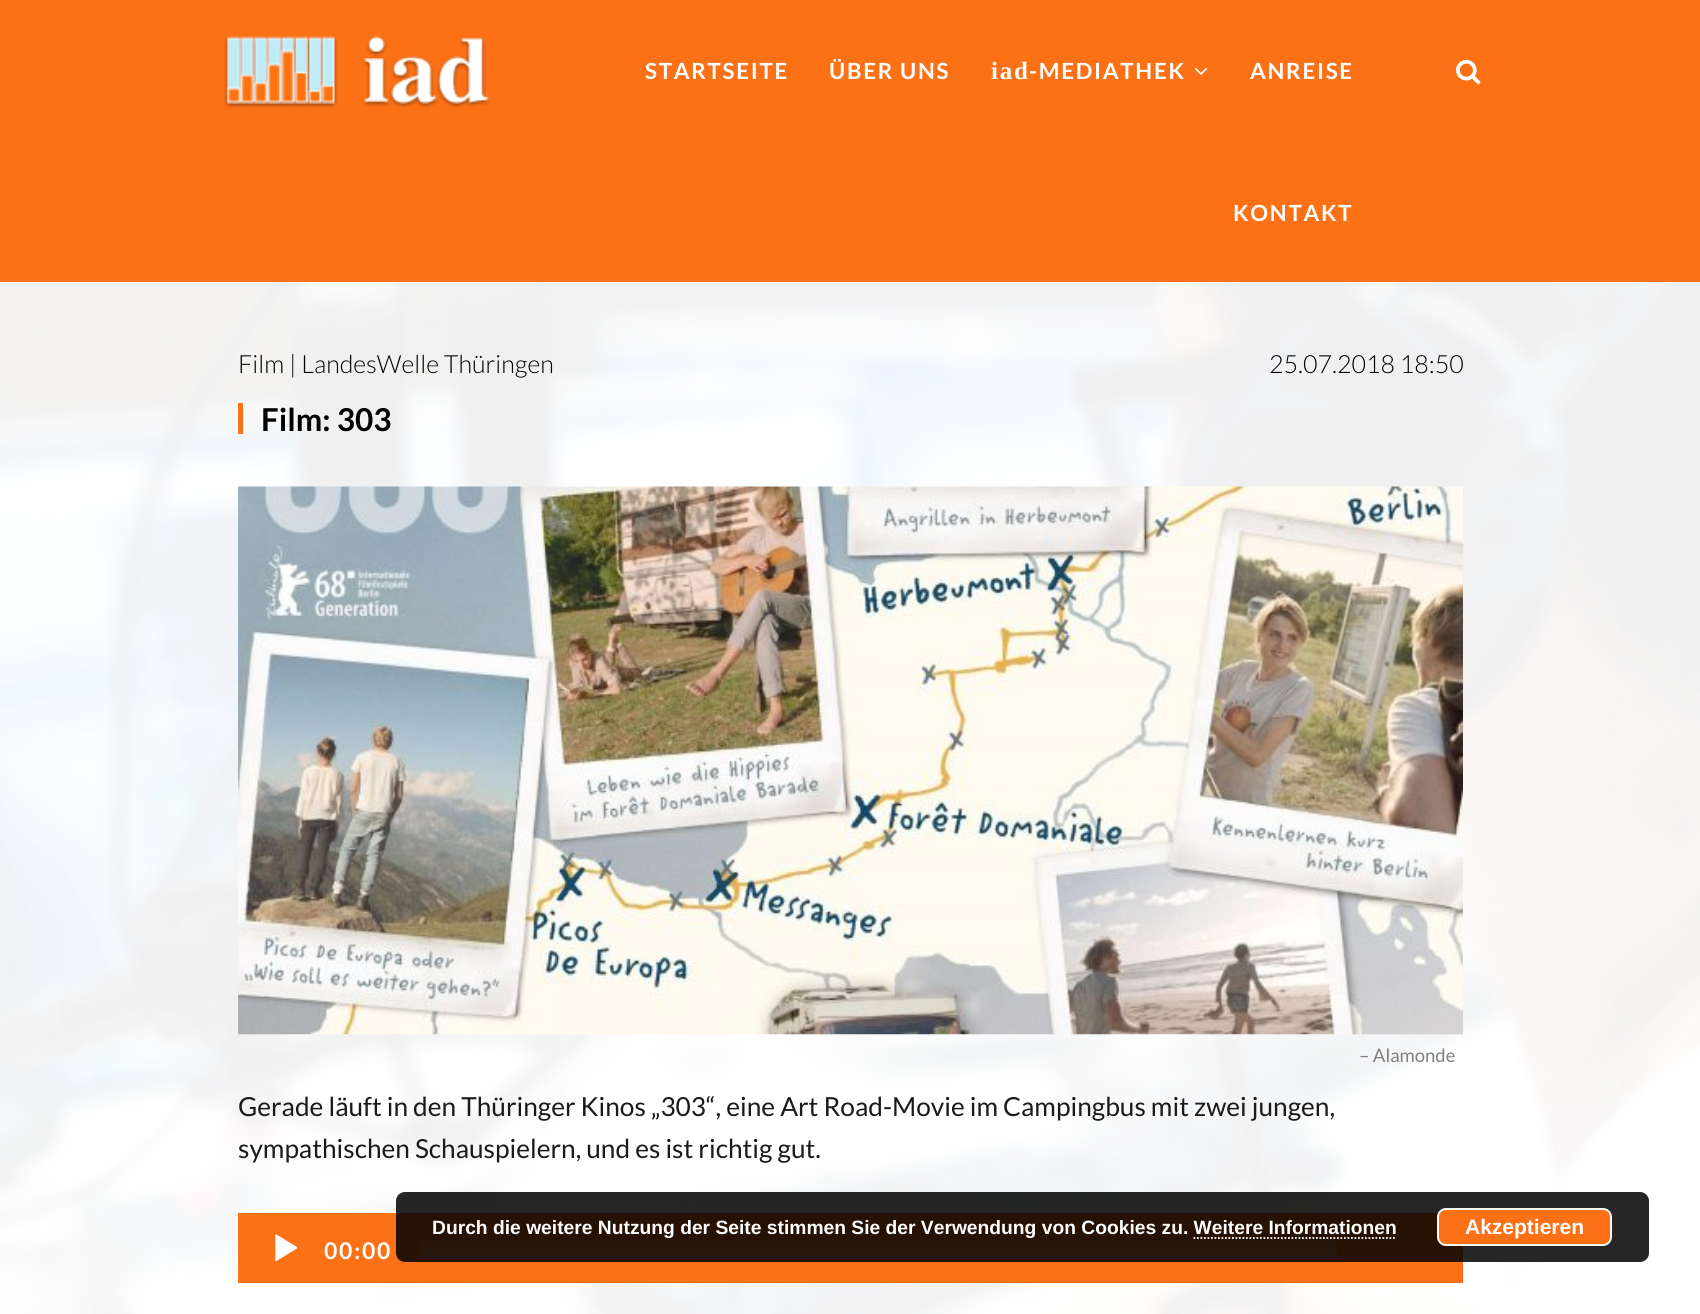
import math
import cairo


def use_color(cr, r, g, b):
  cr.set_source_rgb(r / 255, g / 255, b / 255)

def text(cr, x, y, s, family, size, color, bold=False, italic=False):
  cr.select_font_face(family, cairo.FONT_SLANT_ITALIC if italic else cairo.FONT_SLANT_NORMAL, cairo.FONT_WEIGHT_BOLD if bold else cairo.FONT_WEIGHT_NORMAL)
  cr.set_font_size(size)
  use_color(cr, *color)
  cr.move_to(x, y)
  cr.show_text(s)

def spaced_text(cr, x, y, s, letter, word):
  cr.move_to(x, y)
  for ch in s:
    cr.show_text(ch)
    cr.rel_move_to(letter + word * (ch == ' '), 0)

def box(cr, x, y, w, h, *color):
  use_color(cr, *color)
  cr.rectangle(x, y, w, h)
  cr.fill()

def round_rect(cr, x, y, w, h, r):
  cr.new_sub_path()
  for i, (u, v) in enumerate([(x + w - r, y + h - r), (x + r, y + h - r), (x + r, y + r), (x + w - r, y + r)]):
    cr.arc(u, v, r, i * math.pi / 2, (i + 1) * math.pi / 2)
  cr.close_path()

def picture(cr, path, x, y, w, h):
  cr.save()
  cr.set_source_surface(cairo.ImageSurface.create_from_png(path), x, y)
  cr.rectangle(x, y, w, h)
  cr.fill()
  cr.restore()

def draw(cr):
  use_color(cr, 255, 255, 255)
  cr.paint()
  picture(cr, "img_01.png", 0, 282, 1700, 1032)
  box(cr, 0, 0, 1700, 282, 252, 113, 22)
  picture(cr, "img_02.png", 224, 36, 267, 72)
  picture(cr, "img_03.png", 1194, 67, 14, 8)
  picture(cr, "img_04.png", 1456, 59, 25, 26)
  box(cr, 238, 403, 5, 31, 252, 113, 22)
  picture(cr, "img_05.png", 238, 486, 1225, 549)
  box(cr, 238, 1213, 1225, 70, 252, 113, 22)
  picture(cr, "img_06.png", 275, 1234, 23, 27)
  box(cr, 420, 1241, 917, 17, 252, 141, 68)
  cr.set_source_rgba(0, 0, 0, 0.85)
  round_rect(cr, 396, 1192, 1253, 70, 9)
  cr.fill()
  use_color(cr, 252, 113, 22)
  round_rect(cr, 1438, 1209, 173, 36, 8)
  cr.fill_preserve()
  use_color(cr, 246, 246, 246)
  cr.stroke()
  cr.new_path()
  cr.move_to(1193.5, 1238)
  cr.line_to(1396.5, 1238)
  use_color(cr, 255, 255, 255)
  cr.set_line_width(1.8)
  cr.set_dash([1.75, 1.75])
  cr.stroke()
  cr.select_font_face("Lato", cairo.FONT_SLANT_NORMAL, cairo.FONT_WEIGHT_BOLD)
  cr.set_font_size(22.25)
  spaced_text(cr, 645, 79, "STARTSEITE", 1.75, 0)
  spaced_text(cr, 829, 79, "ÜBER UNS", 1.75, 0)
  cr.select_font_face("Liberation Serif", cairo.FONT_SLANT_NORMAL, cairo.FONT_WEIGHT_BOLD)
  cr.set_font_size(25)
  spaced_text(cr, 991, 79, "iad", 1.75, 0)
  cr.select_font_face("Lato", cairo.FONT_SLANT_NORMAL, cairo.FONT_WEIGHT_BOLD)
  cr.set_font_size(22.25)
  spaced_text(cr, 1029, 79, "-MEDIATHEK", 1.75, 0)
  spaced_text(cr, 1250, 79, "ANREISE", 1.75, 0)
  spaced_text(cr, 1233, 221, "KONTAKT", 1.75, 0)
  text(cr, 238, 373, "Film | LandesWelle Thüringen", "Lato Light", 25, (0, 0, 0))
  text(cr, 1269, 373, "25.07.2018 18:50", "Lato Light", 25, (0, 0, 0))
  text(cr, 261, 431, "Film: 303", "Lato", 31.5, (0, 0, 0), bold=True)
  text(cr, 1359, 1062, "– Alamonde", "Lato", 18.5, (128, 128, 128))
  text(cr, 238, 1116, "Gerade läuft in den Thüringer Kinos „303“, eine Art Road-Movie im Campingbus mit zwei jungen,", "Lato", 26.25, (26, 26, 26))
  text(cr, 238, 1158, "sympathischen Schauspielern, und es ist richtig gut.", "Lato", 26.25, (26, 26, 26))
  cr.select_font_face("Lato", cairo.FONT_SLANT_NORMAL, cairo.FONT_WEIGHT_BOLD)
  cr.set_font_size(23)
  use_color(cr, 255, 255, 255)
  spaced_text(cr, 324, 1259, "00:00", 1.75, 0)
  text(cr, 432, 1234, "Durch die weitere Nutzung der Seite stimmen Sie der Verwendung von Cookies zu. Weitere Informationen", "Liberation Sans", 19.25, (255, 255, 255), bold=True)
  text(cr, 1465, 1234, "Akzeptieren", "Liberation Sans", 21, (255, 255, 255), bold=True)


surface = cairo.ImageSurface(cairo.FORMAT_RGB24, 1700, 1314)
cr = cairo.Context(surface)
options = cairo.FontOptions()
options.set_hint_metrics(cairo.HINT_METRICS_OFF)
options.set_hint_style(cairo.HINT_STYLE_NONE)
cr.set_font_options(options)
cr.set_miter_limit(4)
draw(cr)
surface.write_to_png("out.png")
